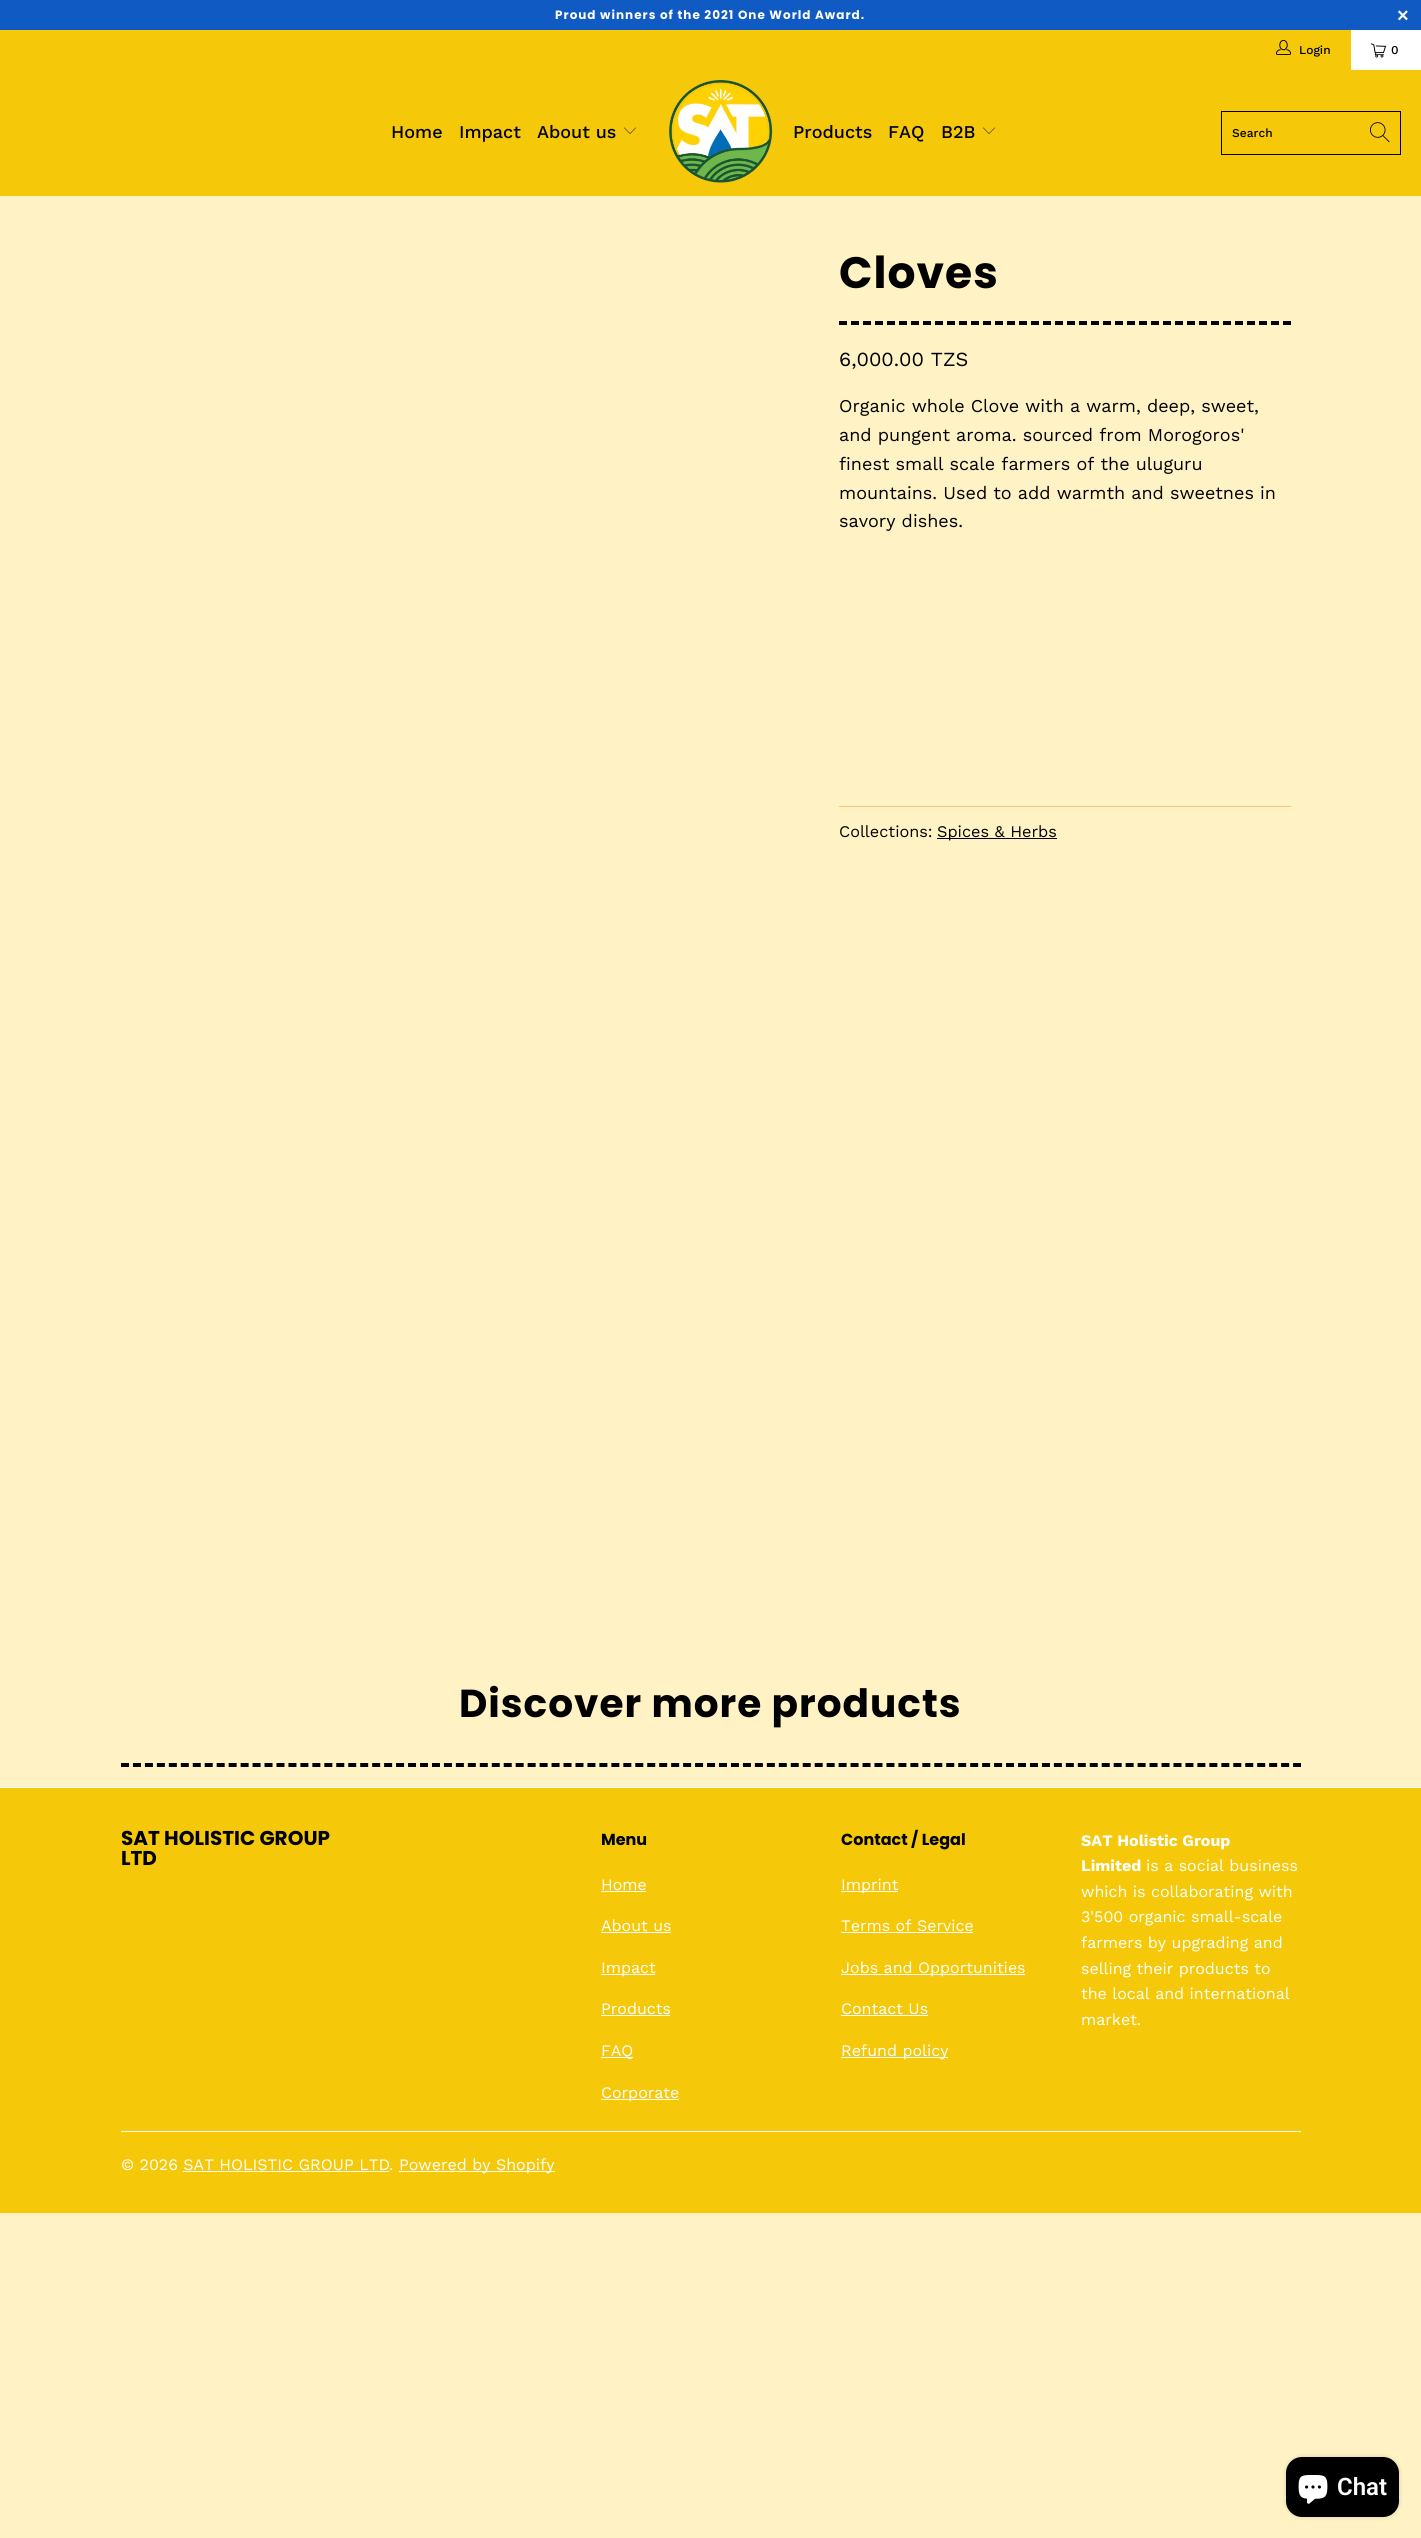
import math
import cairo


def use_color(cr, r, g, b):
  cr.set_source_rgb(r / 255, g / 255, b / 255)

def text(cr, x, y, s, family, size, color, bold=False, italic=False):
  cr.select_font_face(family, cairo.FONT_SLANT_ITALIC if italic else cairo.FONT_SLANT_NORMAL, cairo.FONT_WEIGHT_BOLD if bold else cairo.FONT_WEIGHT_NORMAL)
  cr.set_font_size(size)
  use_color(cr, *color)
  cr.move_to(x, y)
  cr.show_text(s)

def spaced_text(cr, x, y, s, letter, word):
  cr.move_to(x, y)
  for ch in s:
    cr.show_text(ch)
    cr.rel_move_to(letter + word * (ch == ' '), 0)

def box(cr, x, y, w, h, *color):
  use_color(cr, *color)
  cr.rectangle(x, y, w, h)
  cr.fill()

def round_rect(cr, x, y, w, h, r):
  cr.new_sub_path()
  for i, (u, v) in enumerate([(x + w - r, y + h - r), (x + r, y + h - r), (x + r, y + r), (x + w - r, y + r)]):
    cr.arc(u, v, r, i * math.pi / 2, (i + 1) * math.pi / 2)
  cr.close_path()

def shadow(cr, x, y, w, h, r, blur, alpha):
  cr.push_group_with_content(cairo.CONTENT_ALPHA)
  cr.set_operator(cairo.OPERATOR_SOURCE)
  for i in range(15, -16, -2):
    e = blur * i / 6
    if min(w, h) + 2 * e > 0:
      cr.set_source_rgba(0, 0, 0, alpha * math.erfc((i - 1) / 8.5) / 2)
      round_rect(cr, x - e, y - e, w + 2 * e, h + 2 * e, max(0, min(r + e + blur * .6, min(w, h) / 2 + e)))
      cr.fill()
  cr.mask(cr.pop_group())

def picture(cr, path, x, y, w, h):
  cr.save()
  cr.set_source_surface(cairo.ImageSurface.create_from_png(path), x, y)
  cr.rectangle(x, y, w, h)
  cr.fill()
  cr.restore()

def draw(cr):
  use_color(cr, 255, 243, 197)
  cr.paint()
  box(cr, 0, 0, 1421, 30, 15, 90, 195)
  box(cr, 0, 30, 1351, 40, 245, 201, 10)
  picture(cr, "img_01.png", 1276, 39, 15, 16)
  box(cr, 1351, 30, 70, 40, 255, 255, 255)
  picture(cr, "img_02.png", 1371, 43, 15, 15)
  box(cr, 0, 70, 1421, 126, 245, 201, 10)
  picture(cr, "img_03.png", 624, 127, 12, 7)
  picture(cr, "img_04.png", 669, 80, 104, 103)
  picture(cr, "img_03.png", 983, 127, 12, 7)
  cr.rectangle(1221.5, 111.5, 179, 43)
  use_color(cr, 0, 0, 0)
  cr.set_line_width(1)
  cr.stroke()
  picture(cr, "img_05.png", 1370, 122, 20, 21)
  cr.new_path()
  cr.move_to(839, 323)
  cr.line_to(1291, 323)
  cr.set_line_width(4)
  cr.set_dash([8, 4])
  cr.stroke()
  box(cr, 839, 806, 452, 1, 252, 197, 124)
  box(cr, 937, 838, 120, 1, 0, 0, 0)
  cr.new_path()
  cr.move_to(121, 1765)
  cr.line_to(1301, 1765)
  cr.set_dash([8, 3.96])
  cr.stroke()
  box(cr, 0, 1788, 1421, 425, 245, 201, 10)
  box(cr, 0, 1787, 1421, 1, 255, 255, 255)
  box(cr, 601, 1891, 45, 1, 255, 255, 255)
  box(cr, 601, 1932, 70, 1, 255, 255, 255)
  box(cr, 601, 1974, 54, 1, 255, 255, 255)
  box(cr, 601, 2015, 69, 1, 255, 255, 255)
  box(cr, 601, 2057, 32, 1, 255, 255, 255)
  box(cr, 601, 2099, 78, 1, 255, 255, 255)
  box(cr, 841, 1891, 57, 1, 255, 255, 255)
  box(cr, 841, 1932, 132, 1, 255, 255, 255)
  box(cr, 841, 1974, 184, 1, 255, 255, 255)
  box(cr, 841, 2015, 87, 1, 255, 255, 255)
  box(cr, 841, 2057, 107, 1, 255, 255, 255)
  box(cr, 121, 2131, 1180, 1, 255, 255, 255)
  box(cr, 399, 2171, 156, 1, 255, 255, 255)
  box(cr, 183, 2171, 206, 1, 255, 255, 255)
  use_color(cr, 0, 0, 0)
  shadow(cr, 1286, 2457, 113, 60, 16, 2.5, 0.15)
  use_color(cr, 0, 0, 0)
  round_rect(cr, 1286, 2457, 113, 60, 16)
  cr.fill()
  picture(cr, "img_06.png", 1298, 2475, 30, 29)
  cr.select_font_face("Poppins", cairo.FONT_SLANT_NORMAL, cairo.FONT_WEIGHT_BOLD)
  cr.set_font_size(12)
  use_color(cr, 255, 255, 255)
  spaced_text(cr, 555, 19, "Proud winners of the 2021 One World Award.", 1, 0)
  cr.select_font_face("Liberation Sans", cairo.FONT_SLANT_NORMAL, cairo.FONT_WEIGHT_BOLD)
  cr.set_font_size(20)
  spaced_text(cr, 1397, 22, "×", 1, 0)
  text(cr, 1299, 54, "Login", "Work Sans Medium", 12, (0, 0, 0))
  text(cr, 1391, 54, "0", "Work Sans Medium", 12, (0, 0, 0))
  text(cr, 391, 138, "Home", "Work Sans Medium", 18, (0, 0, 0))
  text(cr, 459, 138, "Impact", "Work Sans Medium", 18, (0, 0, 0))
  text(cr, 537, 138, "About us", "Work Sans Medium", 18, (0, 0, 0))
  text(cr, 793, 138, "Products", "Work Sans Medium", 18, (0, 0, 0))
  text(cr, 888, 138, "FAQ", "Work Sans Medium", 18, (0, 0, 0))
  text(cr, 941, 138, "B2B", "Work Sans Medium", 18, (0, 0, 0))
  text(cr, 1232, 137, "Search", "Work Sans Medium", 12, (0, 0, 0))
  cr.select_font_face("Poppins", cairo.FONT_SLANT_NORMAL, cairo.FONT_WEIGHT_BOLD)
  cr.set_font_size(44)
  spaced_text(cr, 839, 288, "Cloves", 1, 0)
  text(cr, 839, 366, "6,000.00 TZS", "Work Sans", 20, (0, 0, 0))
  text(cr, 839, 412, "Organic whole Clove with a warm, deep, sweet,", "Work Sans", 18, (0, 0, 0))
  text(cr, 839, 441, "and pungent aroma. sourced from Morogoros'", "Work Sans", 18, (0, 0, 0))
  text(cr, 839, 470, "finest small scale farmers of the uluguru", "Work Sans", 18, (0, 0, 0))
  text(cr, 839, 499, "mountains. Used to add warmth and sweetnes in", "Work Sans", 18, (0, 0, 0))
  text(cr, 839, 527, "savory dishes.", "Work Sans", 18, (0, 0, 0))
  text(cr, 839, 837, "Collections:", "Work Sans", 16.25, (0, 0, 0))
  text(cr, 937, 837, "Spices & Herbs", "Work Sans", 16.25, (0, 0, 0))
  cr.select_font_face("Poppins", cairo.FONT_SLANT_NORMAL, cairo.FONT_WEIGHT_BOLD)
  cr.set_font_size(39)
  spaced_text(cr, 459, 1717, "Discover more products", 1, 0)
  text(cr, 121, 1845, "SAT HOLISTIC GROUP", "Poppins", 20, (0, 0, 0), bold=True)
  text(cr, 121, 1865, "LTD", "Poppins", 20, (0, 0, 0), bold=True)
  text(cr, 601, 1845, "Menu", "Poppins", 16, (0, 0, 0), bold=True)
  text(cr, 601, 1890, "Home", "Work Sans", 16, (255, 255, 255))
  text(cr, 601, 1931, "About us", "Work Sans", 16, (255, 255, 255))
  text(cr, 601, 1973, "Impact", "Work Sans", 16, (255, 255, 255))
  text(cr, 601, 2014, "Products", "Work Sans", 16, (255, 255, 255))
  text(cr, 601, 2056, "FAQ", "Work Sans", 16, (255, 255, 255))
  text(cr, 601, 2098, "Corporate", "Work Sans", 16, (255, 255, 255))
  text(cr, 841, 1845, "Contact / Legal", "Poppins", 16, (0, 0, 0), bold=True)
  text(cr, 841, 1890, "Imprint", "Work Sans", 16, (255, 255, 255))
  text(cr, 841, 1931, "Terms of Service", "Work Sans", 16, (255, 255, 255))
  text(cr, 841, 1973, "Jobs and Opportunities", "Work Sans", 16, (255, 255, 255))
  text(cr, 841, 2014, "Contact Us", "Work Sans", 16, (255, 255, 255))
  text(cr, 841, 2056, "Refund policy", "Work Sans", 16, (255, 255, 255))
  text(cr, 1081, 1846, "SAT Holistic Group", "Work Sans", 16, (255, 255, 255), bold=True)
  text(cr, 1081, 1871, "Limited", "Work Sans", 16, (255, 255, 255), bold=True)
  text(cr, 1146, 1871, "is a social business", "Work Sans", 16, (255, 255, 255))
  text(cr, 1081, 1897, "which is collaborating with", "Work Sans", 16, (255, 255, 255))
  text(cr, 1081, 1922, "3'500 organic small-scale", "Work Sans", 16, (255, 255, 255))
  text(cr, 1081, 1948, "farmers by upgrading and", "Work Sans", 16, (255, 255, 255))
  text(cr, 1081, 1974, "selling their products to", "Work Sans", 16, (255, 255, 255))
  text(cr, 1081, 1999, "the local and international", "Work Sans", 16, (255, 255, 255))
  text(cr, 1081, 2025, "market.", "Work Sans", 16, (255, 255, 255))
  text(cr, 121, 2170, "© 2026 SAT HOLISTIC GROUP LTD", "Work Sans", 16, (255, 255, 255))
  text(cr, 389, 2170, ".", "Work Sans", 16, (255, 255, 255))
  text(cr, 399, 2170, "Powered by Shopify", "Work Sans", 16, (255, 255, 255))
  text(cr, 1337, 2495, "Chat", "Roboto SemiBold", 24, (255, 255, 255))


surface = cairo.ImageSurface(cairo.FORMAT_RGB24, 1421, 2538)
cr = cairo.Context(surface)
options = cairo.FontOptions()
options.set_hint_metrics(cairo.HINT_METRICS_OFF)
options.set_hint_style(cairo.HINT_STYLE_NONE)
cr.set_font_options(options)
cr.set_miter_limit(4)
draw(cr)
surface.write_to_png("out.png")
